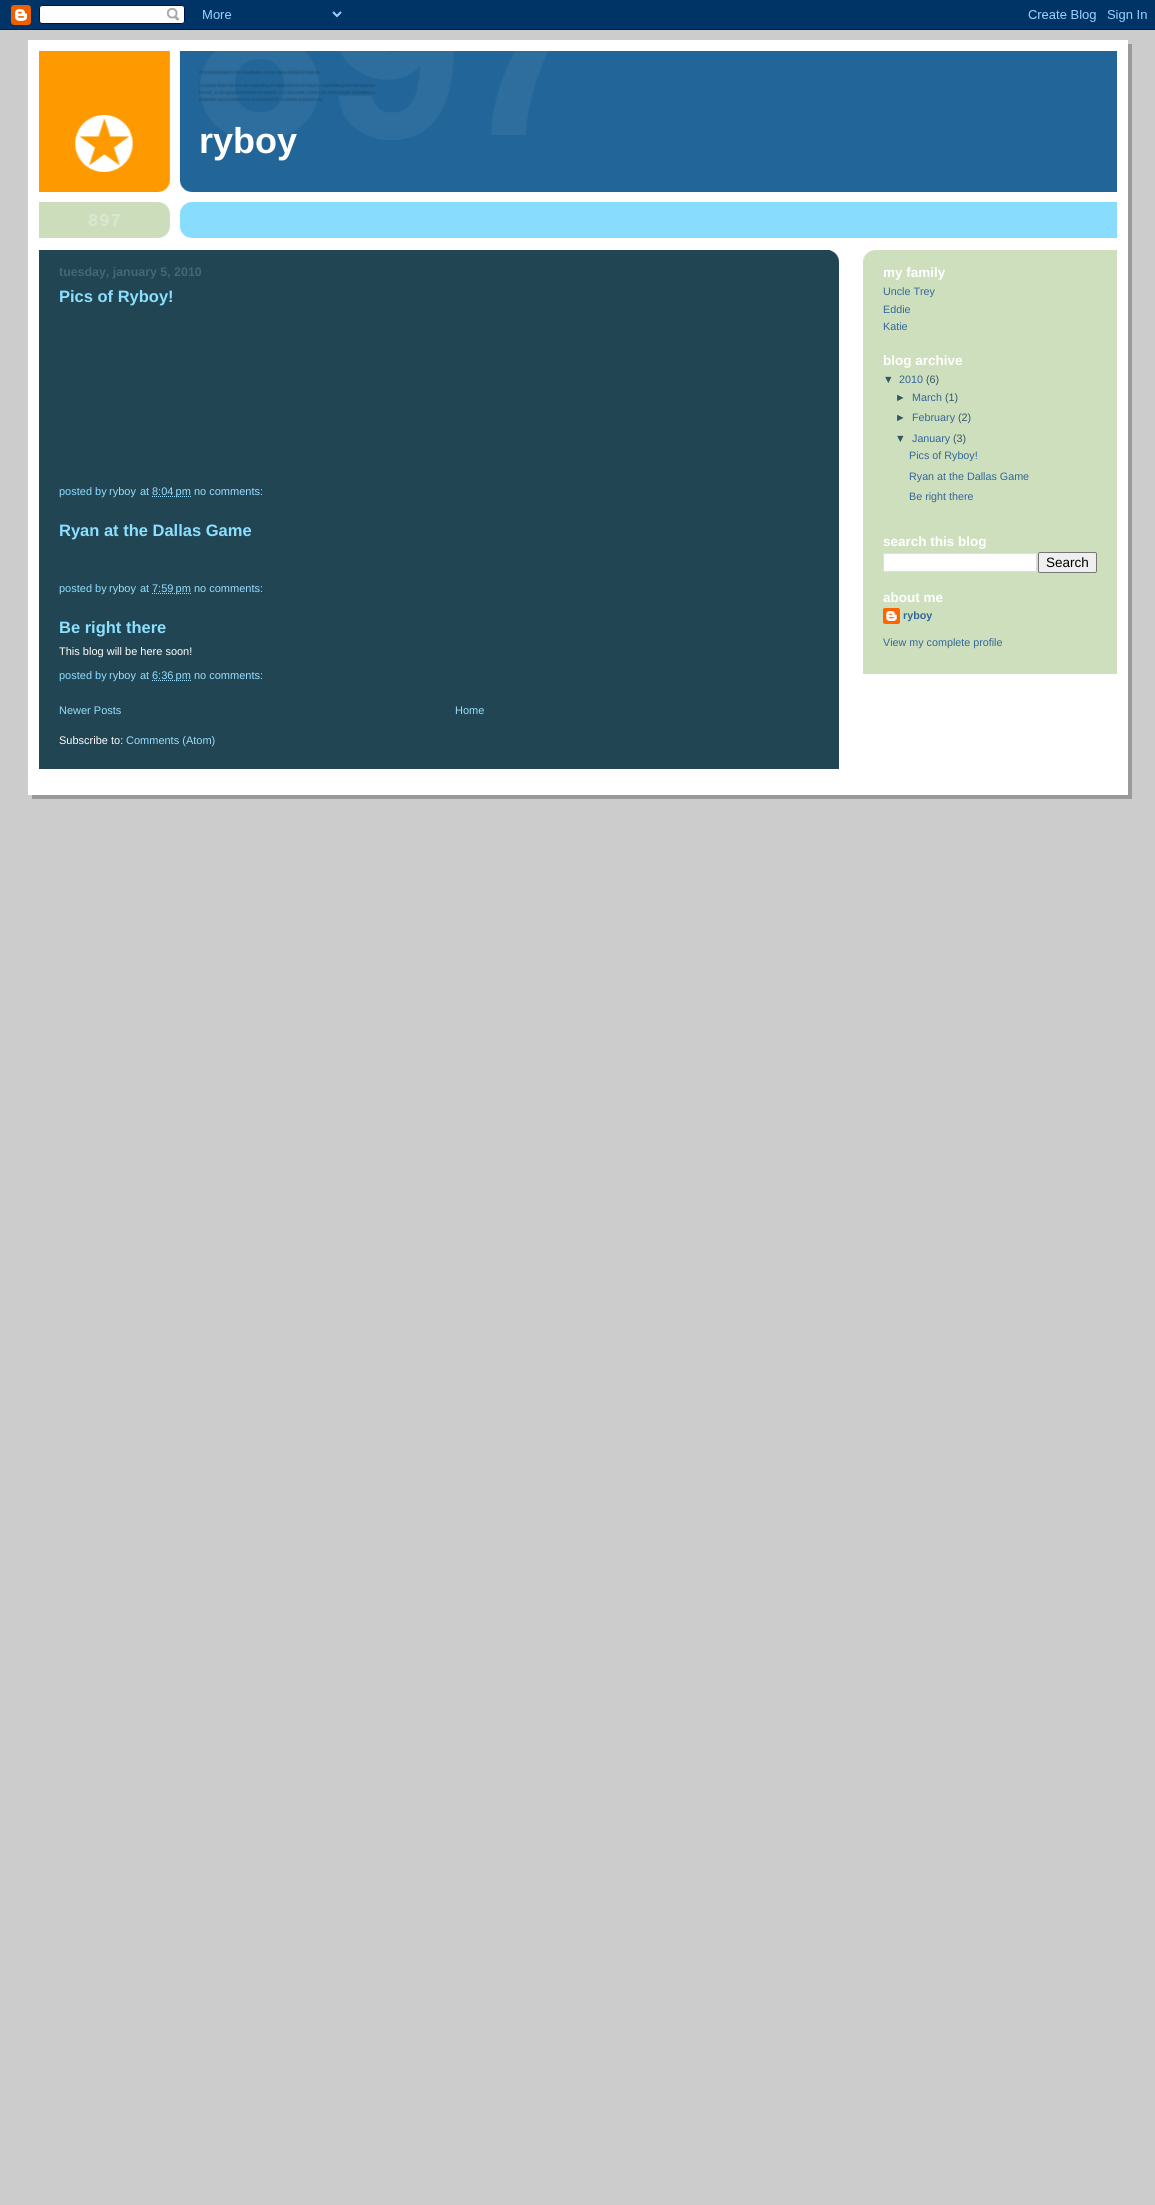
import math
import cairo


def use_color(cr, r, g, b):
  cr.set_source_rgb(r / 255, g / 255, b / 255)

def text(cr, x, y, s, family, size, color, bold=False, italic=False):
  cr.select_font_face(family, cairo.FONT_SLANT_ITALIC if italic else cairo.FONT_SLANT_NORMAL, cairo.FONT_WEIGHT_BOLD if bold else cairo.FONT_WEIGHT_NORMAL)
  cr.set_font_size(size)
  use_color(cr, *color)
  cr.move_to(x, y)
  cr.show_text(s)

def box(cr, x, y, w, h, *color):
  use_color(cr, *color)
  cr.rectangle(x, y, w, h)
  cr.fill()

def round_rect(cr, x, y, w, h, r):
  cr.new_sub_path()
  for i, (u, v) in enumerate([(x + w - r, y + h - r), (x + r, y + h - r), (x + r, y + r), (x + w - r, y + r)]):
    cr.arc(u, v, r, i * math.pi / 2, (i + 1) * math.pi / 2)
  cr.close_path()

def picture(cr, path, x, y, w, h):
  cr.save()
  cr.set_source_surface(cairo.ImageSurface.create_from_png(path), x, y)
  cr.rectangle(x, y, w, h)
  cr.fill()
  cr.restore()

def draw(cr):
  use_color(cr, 204, 204, 204)
  cr.paint()
  picture(cr, "img_01.png", 0, 0, 1155, 30)
  box(cr, 32, 44, 1100, 755, 153, 153, 153)
  box(cr, 28, 40, 1100, 755, 255, 255, 255)
  box(cr, 179, 51, 938, 141, 34, 102, 153)
  picture(cr, "img_02.png", 39, 51, 153, 141)
  picture(cr, "img_03.png", 199, 51, 349, 89)
  box(cr, 179, 202, 938, 36, 136, 221, 255)
  picture(cr, "img_04.png", 39, 202, 153, 36)
  picture(cr, "img_05.png", 159, 226, 33, 12)
  picture(cr, "img_06.png", 88, 214, 32, 12)
  box(cr, 39, 250, 800, 519, 33, 69, 82)
  picture(cr, "img_07.png", 830, 250, 9, 12)
  cr.new_path()
  cr.move_to(152, 496.5)
  cr.line_to(191, 496.5)
  use_color(cr, 153, 221, 255)
  cr.set_line_width(1)
  cr.set_dash([1, 1])
  cr.stroke()
  cr.new_path()
  cr.move_to(152, 593.5)
  cr.line_to(191, 593.5)
  cr.stroke()
  cr.new_path()
  cr.move_to(152, 680.5)
  cr.line_to(191, 680.5)
  cr.stroke()
  box(cr, 863, 250, 254, 424, 206, 223, 189)
  picture(cr, "img_08.png", 863, 250, 12, 11)
  use_color(cr, 255, 255, 255)
  cr.rectangle(883.5, 553.5, 153, 18)
  cr.fill_preserve()
  use_color(cr, 221, 221, 221)
  cr.set_dash([])
  cr.stroke()
  use_color(cr, 239, 239, 239)
  round_rect(cr, 1038.5, 552.5, 58, 20, 1.5)
  cr.fill_preserve()
  use_color(cr, 118, 118, 118)
  cr.stroke()
  picture(cr, "img_09.png", 883, 608, 17, 16)
  text(cr, 199, 153, "ryboy", "Liberation Sans", 36, (255, 255, 255), bold=True)
  text(cr, 59, 276, "tuesday, january 5, 2010", "Liberation Sans", 12.4, (68, 102, 119), bold=True)
  text(cr, 59, 302, "Pics of Ryboy!", "Liberation Sans", 16.5, (140, 223, 255), bold=True)
  text(cr, 59, 495, "posted by", "Liberation Sans", 11, (140, 223, 255))
  text(cr, 109, 495, "ryboy", "Liberation Sans", 11, (153, 221, 255))
  text(cr, 140, 495, "at", "Liberation Sans", 11, (140, 223, 255))
  text(cr, 152, 495, "8:04 pm no comments:", "Liberation Sans", 11, (153, 221, 255))
  text(cr, 59, 536, "Ryan at the Dallas Game", "Liberation Sans", 16.5, (140, 223, 255), bold=True)
  text(cr, 59, 592, "posted by", "Liberation Sans", 11, (140, 223, 255))
  text(cr, 109, 592, "ryboy", "Liberation Sans", 11, (153, 221, 255))
  text(cr, 140, 592, "at", "Liberation Sans", 11, (140, 223, 255))
  text(cr, 152, 592, "7:59 pm no comments:", "Liberation Sans", 11, (153, 221, 255))
  text(cr, 59, 633, "Be right there", "Liberation Sans", 16.5, (140, 223, 255), bold=True)
  text(cr, 59, 655, "This blog will be here soon!", "Liberation Sans", 11, (255, 255, 255))
  text(cr, 59, 679, "posted by", "Liberation Sans", 11, (140, 223, 255))
  text(cr, 109, 679, "ryboy", "Liberation Sans", 11, (153, 221, 255))
  text(cr, 140, 679, "at", "Liberation Sans", 11, (140, 223, 255))
  text(cr, 152, 679, "6:36 pm no comments:", "Liberation Sans", 11, (153, 221, 255))
  text(cr, 59, 714, "Newer Posts", "Liberation Sans", 11, (153, 221, 255))
  text(cr, 455, 714, "Home", "Liberation Sans", 11, (153, 221, 255))
  text(cr, 59, 744, "Subscribe to:", "Liberation Sans", 11, (255, 255, 255))
  text(cr, 126, 744, "Comments (Atom)", "Liberation Sans", 11, (153, 221, 255))
  text(cr, 883, 277, "my family", "Liberation Sans", 13.5, (255, 255, 255), bold=True)
  text(cr, 883, 295, "Uncle Trey", "Liberation Sans", 10.75, (51, 102, 153))
  text(cr, 883, 313, "Eddie", "Liberation Sans", 10.75, (51, 102, 153))
  text(cr, 883, 330, "Katie", "Liberation Sans", 10.75, (51, 102, 153))
  text(cr, 883, 365, "blog archive", "Liberation Sans", 13.5, (255, 255, 255), bold=True)
  text(cr, 883, 383, "▼", "Liberation Sans", 10.75, (51, 85, 102))
  text(cr, 899, 383, "2010", "Liberation Sans", 10.75, (51, 102, 153))
  text(cr, 926, 383, "(6)", "Liberation Sans", 10.75, (51, 85, 102))
  text(cr, 895, 401, "►", "Liberation Sans", 10.75, (51, 85, 102))
  text(cr, 912, 401, "March", "Liberation Sans", 10.75, (51, 102, 153))
  text(cr, 945, 401, "(1)", "Liberation Sans", 10.75, (51, 85, 102))
  text(cr, 895, 421, "►", "Liberation Sans", 10.75, (51, 85, 102))
  text(cr, 912, 421, "February", "Liberation Sans", 10.75, (51, 102, 153))
  text(cr, 958, 421, "(2)", "Liberation Sans", 10.75, (51, 85, 102))
  text(cr, 895, 442, "▼", "Liberation Sans", 10.75, (51, 85, 102))
  text(cr, 912, 442, "January", "Liberation Sans", 10.75, (51, 102, 153))
  text(cr, 953, 442, "(3)", "Liberation Sans", 10.75, (51, 85, 102))
  text(cr, 909, 459, "Pics of Ryboy!", "Liberation Sans", 10.75, (51, 102, 153))
  text(cr, 909, 480, "Ryan at the Dallas Game", "Liberation Sans", 10.75, (51, 102, 153))
  text(cr, 909, 500, "Be right there", "Liberation Sans", 10.75, (51, 102, 153))
  text(cr, 883, 546, "search this blog", "Liberation Sans", 13.5, (255, 255, 255), bold=True)
  text(cr, 1046, 567, "Search", "Liberation Sans", 13.5, (0, 0, 0))
  text(cr, 883, 602, "about me", "Liberation Sans", 13.5, (255, 255, 255), bold=True)
  text(cr, 903, 619, "ryboy", "Liberation Sans", 10.75, (51, 102, 153), bold=True)
  text(cr, 883, 646, "View my complete profile", "Liberation Sans", 10.75, (51, 102, 153))


surface = cairo.ImageSurface(cairo.FORMAT_RGB24, 1155, 2205)
cr = cairo.Context(surface)
options = cairo.FontOptions()
options.set_hint_metrics(cairo.HINT_METRICS_OFF)
options.set_hint_style(cairo.HINT_STYLE_NONE)
cr.set_font_options(options)
cr.set_miter_limit(4)
draw(cr)
surface.write_to_png("out.png")
